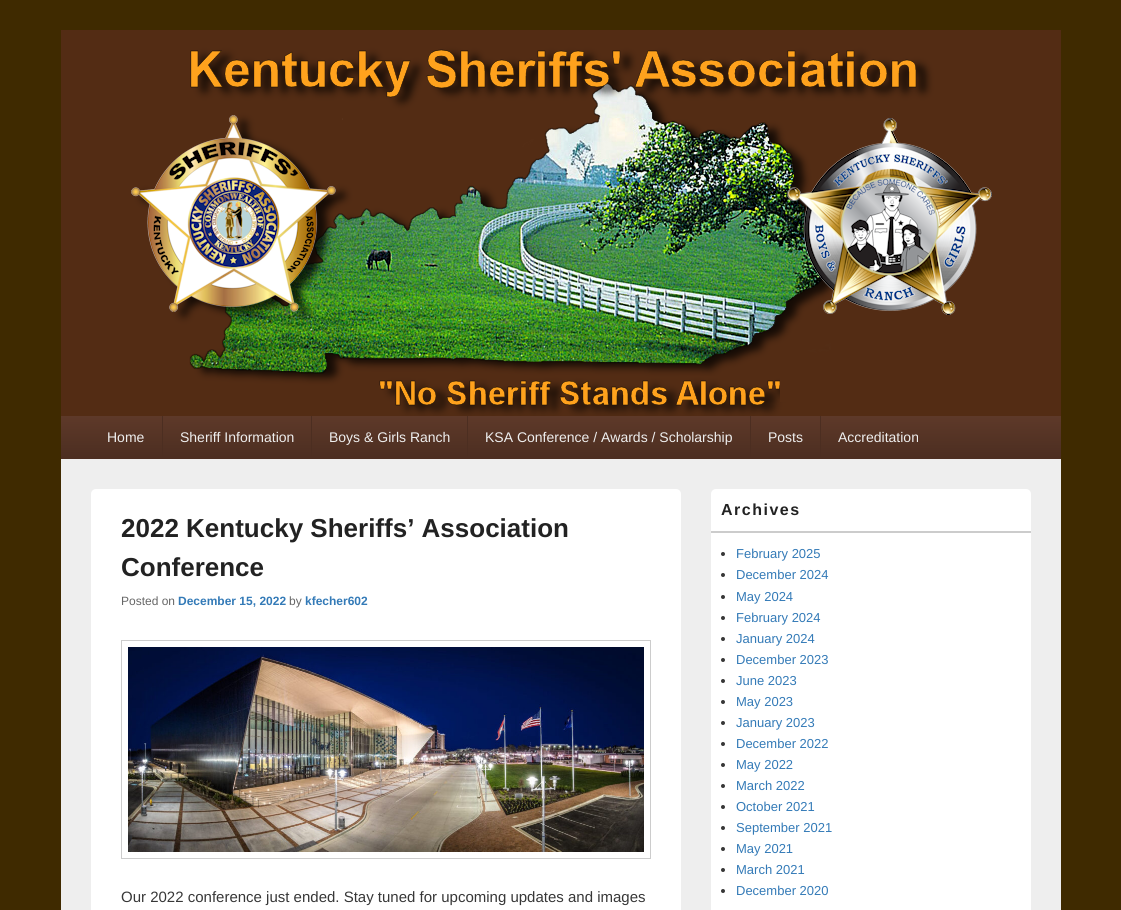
import math
import cairo


def use_color(cr, r, g, b):
  cr.set_source_rgb(r / 255, g / 255, b / 255)

def text(cr, x, y, s, family, size, color, bold=False, italic=False):
  cr.select_font_face(family, cairo.FONT_SLANT_ITALIC if italic else cairo.FONT_SLANT_NORMAL, cairo.FONT_WEIGHT_BOLD if bold else cairo.FONT_WEIGHT_NORMAL)
  cr.set_font_size(size)
  use_color(cr, *color)
  cr.move_to(x, y)
  cr.show_text(s)

def spaced_text(cr, x, y, s, letter, word):
  cr.move_to(x, y)
  for ch in s:
    cr.show_text(ch)
    cr.rel_move_to(letter + word * (ch == ' '), 0)

def box(cr, x, y, w, h, *color):
  use_color(cr, *color)
  cr.rectangle(x, y, w, h)
  cr.fill()

def round_rect(cr, x, y, w, h, r):
  cr.new_sub_path()
  for i, (u, v) in enumerate([(x + w - r, y + h - r), (x + r, y + h - r), (x + r, y + r), (x + w - r, y + r)]):
    cr.arc(u, v, r, i * math.pi / 2, (i + 1) * math.pi / 2)
  cr.close_path()

def picture(cr, path, x, y, w, h):
  cr.save()
  cr.set_source_surface(cairo.ImageSurface.create_from_png(path), x, y)
  cr.rectangle(x, y, w, h)
  cr.fill()
  cr.restore()

def draw(cr):
  use_color(cr, 63, 42, 0)
  cr.paint()
  box(cr, 61, 459, 1000, 451, 238, 238, 238)
  picture(cr, "img_01.png", 61, 30, 1000, 386)
  gradient = cairo.LinearGradient(561, 416, 561, 458)
  gradient.add_color_stop_rgba(0, 0.369, 0.224, 0.161, 1)
  gradient.add_color_stop_rgba(1, 0.298, 0.18, 0.129, 1)
  cr.set_source(gradient)
  cr.rectangle(61, 416, 1000, 42)
  cr.fill()
  box(cr, 61, 458, 1000, 1, 76, 46, 33)
  box(cr, 162, 416, 1, 42, 76, 46, 33)
  box(cr, 311, 416, 1, 42, 76, 46, 33)
  box(cr, 467, 416, 1, 42, 76, 46, 33)
  box(cr, 750, 416, 1, 42, 76, 46, 33)
  box(cr, 820, 416, 1, 42, 76, 46, 33)
  use_color(cr, 255, 255, 255)
  round_rect(cr, 91, 489, 590, 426, 5)
  cr.fill()
  cr.rectangle(121.5, 640.5, 529, 218)
  use_color(cr, 204, 204, 204)
  cr.set_line_width(1)
  cr.stroke()
  picture(cr, "img_02.png", 128, 647, 516, 205)
  use_color(cr, 255, 255, 255)
  round_rect(cr, 711, 489, 320, 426, 5)
  cr.fill()
  box(cr, 711, 531, 320, 2, 204, 204, 204)
  use_color(cr, 55, 55, 55)
  cr.arc(723, 554, 2, 0, 2 * math.pi)
  cr.fill()
  cr.arc(723, 575, 2, 0, 2 * math.pi)
  cr.fill()
  cr.arc(723, 597, 2, 0, 2 * math.pi)
  cr.fill()
  cr.arc(723, 618, 2, 0, 2 * math.pi)
  cr.fill()
  cr.arc(723, 639, 2, 0, 2 * math.pi)
  cr.fill()
  cr.arc(723, 660, 2, 0, 2 * math.pi)
  cr.fill()
  cr.arc(723, 681, 2, 0, 2 * math.pi)
  cr.fill()
  cr.arc(723, 702, 2, 0, 2 * math.pi)
  cr.fill()
  cr.arc(723, 723, 2, 0, 2 * math.pi)
  cr.fill()
  cr.arc(723, 744, 2, 0, 2 * math.pi)
  cr.fill()
  cr.arc(723, 765, 2, 0, 2 * math.pi)
  cr.fill()
  cr.arc(723, 786, 2, 0, 2 * math.pi)
  cr.fill()
  cr.arc(723, 807, 2, 0, 2 * math.pi)
  cr.fill()
  cr.arc(723, 828, 2, 0, 2 * math.pi)
  cr.fill()
  cr.arc(723, 849, 2, 0, 2 * math.pi)
  cr.fill()
  cr.arc(723, 870, 2, 0, 2 * math.pi)
  cr.fill()
  cr.arc(723, 891, 2, 0, 2 * math.pi)
  cr.fill()
  text(cr, 107, 442, "Home", "Liberation Sans", 14, (238, 238, 238))
  text(cr, 180, 442, "Sheriff Information", "Liberation Sans", 14, (238, 238, 238))
  text(cr, 329, 442, "Boys & Girls Ranch", "Liberation Sans", 14, (238, 238, 238))
  text(cr, 485, 442, "KSA Conference / Awards / Scholarship", "Liberation Sans", 14, (238, 238, 238))
  text(cr, 768, 442, "Posts", "Liberation Sans", 14, (238, 238, 238))
  text(cr, 838, 442, "Accreditation", "Liberation Sans", 14, (238, 238, 238))
  text(cr, 121, 537, "2022 Kentucky Sheriffs’ Association", "Liberation Sans", 26, (34, 34, 34), bold=True)
  text(cr, 121, 576, "Conference", "Liberation Sans", 26, (34, 34, 34), bold=True)
  text(cr, 121, 605, "Posted on", "Liberation Sans", 12, (102, 102, 102))
  text(cr, 178, 605, "December 15, 2022", "Liberation Sans", 12, (51, 122, 183), bold=True)
  text(cr, 289, 605, "by", "Liberation Sans", 12, (102, 102, 102))
  text(cr, 305, 605, "kfecher602", "Liberation Sans", 12, (51, 122, 183), bold=True)
  text(cr, 121, 902, "Our 2022 conference just ended. Stay tuned for upcoming updates and images", "Liberation Sans", 15, (55, 55, 55))
  cr.select_font_face("Liberation Sans", cairo.FONT_SLANT_NORMAL, cairo.FONT_WEIGHT_BOLD)
  cr.set_font_size(16)
  use_color(cr, 34, 34, 34)
  spaced_text(cr, 721, 515, "Archives", 1.5, 0)
  text(cr, 736, 558, "February 2025", "Liberation Sans", 13, (51, 122, 183))
  text(cr, 736, 579, "December 2024", "Liberation Sans", 13, (51, 122, 183))
  text(cr, 736, 601, "May 2024", "Liberation Sans", 13, (51, 122, 183))
  text(cr, 736, 622, "February 2024", "Liberation Sans", 13, (51, 122, 183))
  text(cr, 736, 643, "January 2024", "Liberation Sans", 13, (51, 122, 183))
  text(cr, 736, 664, "December 2023", "Liberation Sans", 13, (51, 122, 183))
  text(cr, 736, 685, "June 2023", "Liberation Sans", 13, (51, 122, 183))
  text(cr, 736, 706, "May 2023", "Liberation Sans", 13, (51, 122, 183))
  text(cr, 736, 727, "January 2023", "Liberation Sans", 13, (51, 122, 183))
  text(cr, 736, 748, "December 2022", "Liberation Sans", 13, (51, 122, 183))
  text(cr, 736, 769, "May 2022", "Liberation Sans", 13, (51, 122, 183))
  text(cr, 736, 790, "March 2022", "Liberation Sans", 13, (51, 122, 183))
  text(cr, 736, 811, "October 2021", "Liberation Sans", 13, (51, 122, 183))
  text(cr, 736, 832, "September 2021", "Liberation Sans", 13, (51, 122, 183))
  text(cr, 736, 853, "May 2021", "Liberation Sans", 13, (51, 122, 183))
  text(cr, 736, 874, "March 2021", "Liberation Sans", 13, (51, 122, 183))
  text(cr, 736, 895, "December 2020", "Liberation Sans", 13, (51, 122, 183))


surface = cairo.ImageSurface(cairo.FORMAT_RGB24, 1121, 910)
cr = cairo.Context(surface)
options = cairo.FontOptions()
options.set_hint_metrics(cairo.HINT_METRICS_OFF)
options.set_hint_style(cairo.HINT_STYLE_NONE)
cr.set_font_options(options)
cr.set_miter_limit(4)
draw(cr)
surface.write_to_png("out.png")
